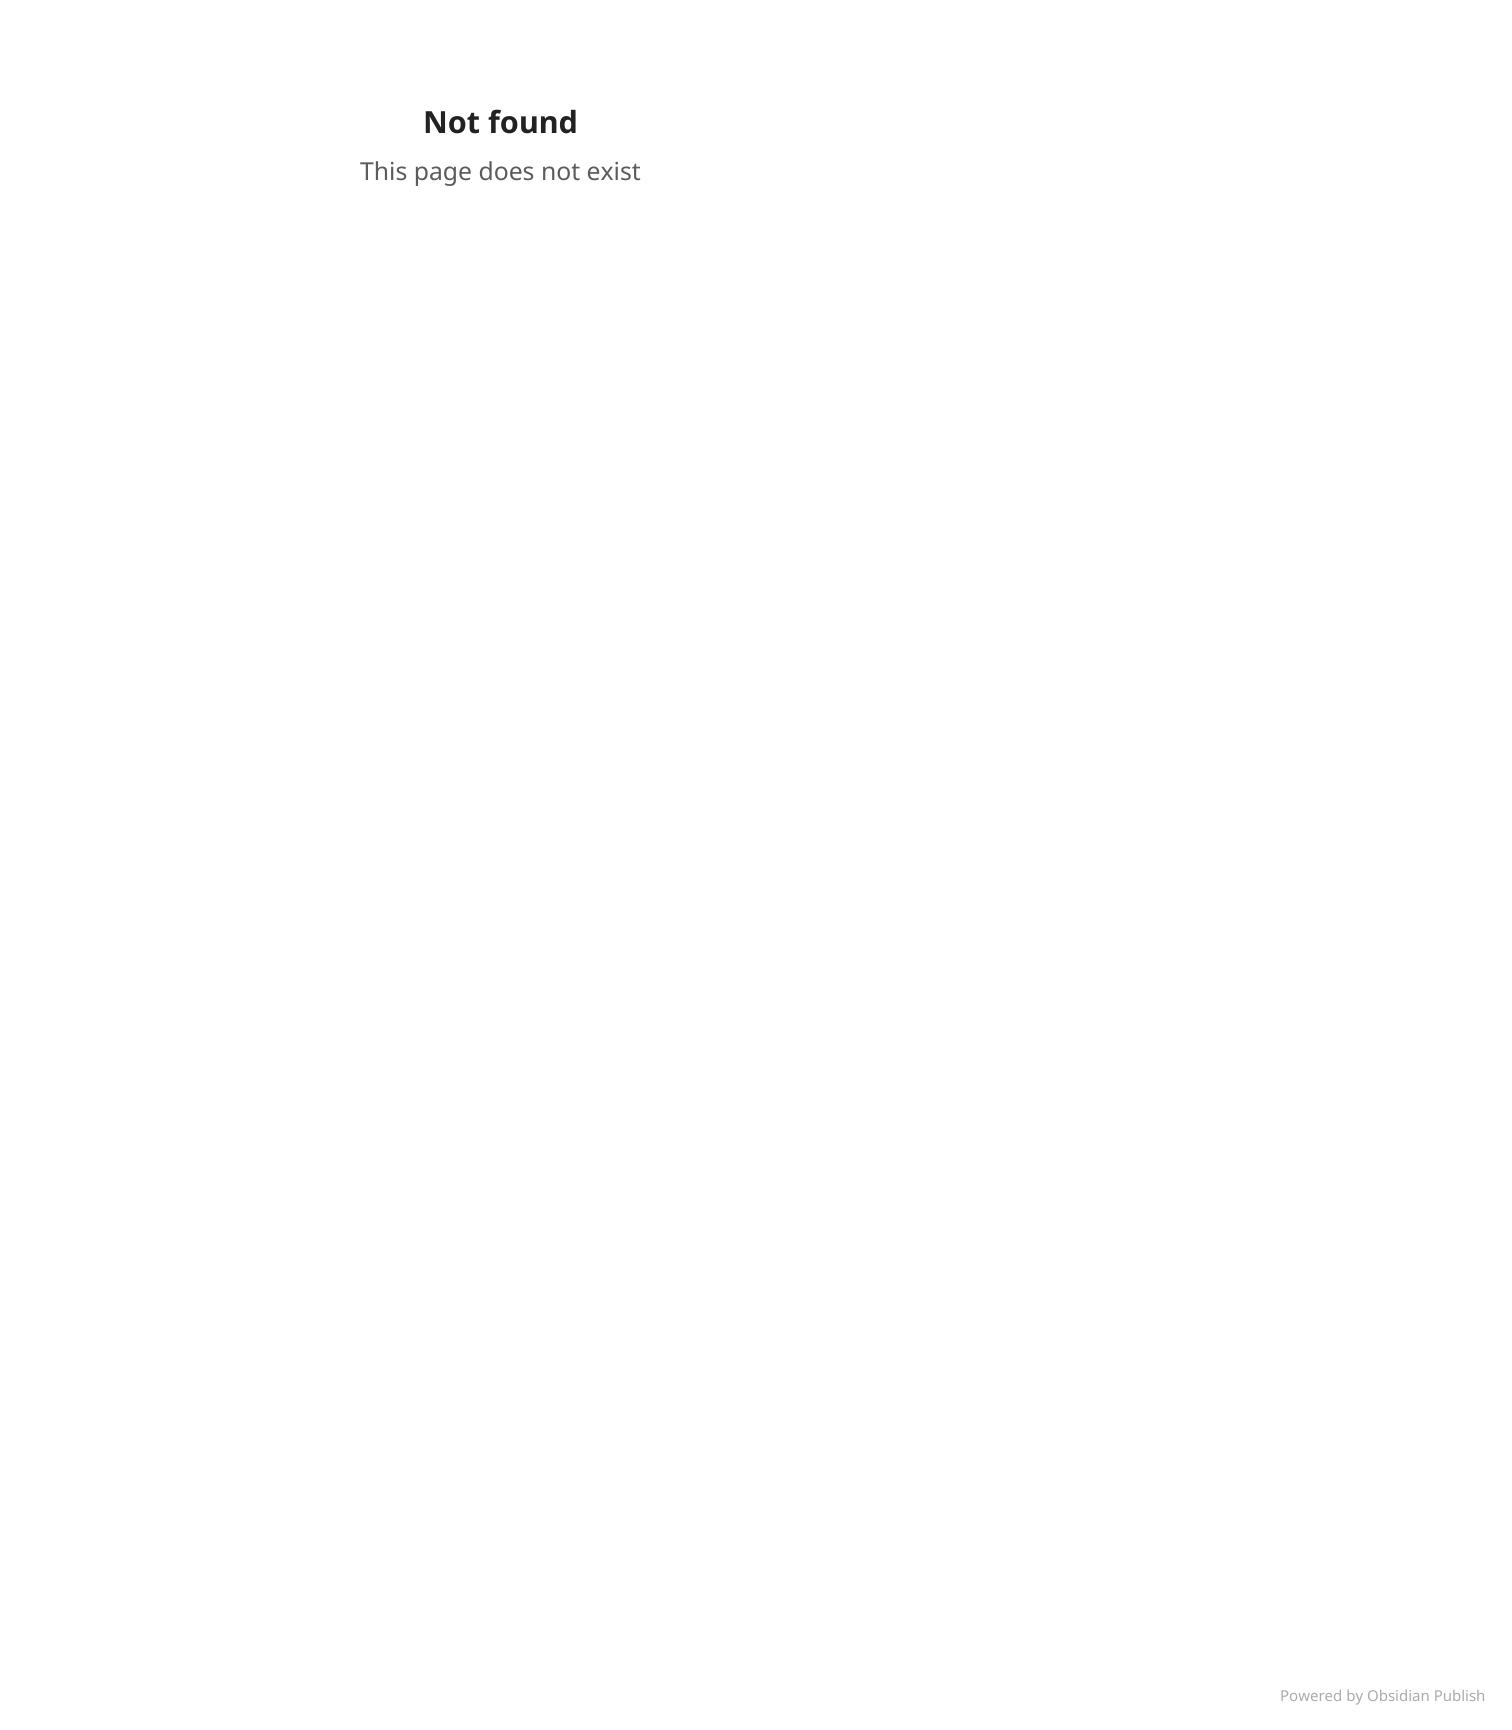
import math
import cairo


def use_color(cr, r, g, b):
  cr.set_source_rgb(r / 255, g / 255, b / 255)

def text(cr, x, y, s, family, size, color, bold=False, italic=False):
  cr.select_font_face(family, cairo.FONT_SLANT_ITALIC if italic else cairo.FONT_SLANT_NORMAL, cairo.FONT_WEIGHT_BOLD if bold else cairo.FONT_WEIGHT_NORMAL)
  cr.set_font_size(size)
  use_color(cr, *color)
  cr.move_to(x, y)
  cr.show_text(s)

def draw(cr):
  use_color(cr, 255, 255, 255)
  cr.paint()
  text(cr, 423, 133, "Not found", "Noto Sans", 30.5, (34, 34, 34), bold=True)
  text(cr, 360, 180, "This page does not exist", "Noto Sans", 24.75, (92, 92, 92))
  text(cr, 1280, 1701, "Powered by Obsidian Publish", "Noto Sans", 15, (171, 171, 171))


surface = cairo.ImageSurface(cairo.FORMAT_RGB24, 1512, 1730)
cr = cairo.Context(surface)
options = cairo.FontOptions()
options.set_hint_metrics(cairo.HINT_METRICS_OFF)
options.set_hint_style(cairo.HINT_STYLE_NONE)
cr.set_font_options(options)
cr.set_miter_limit(4)
draw(cr)
surface.write_to_png("out.png")
